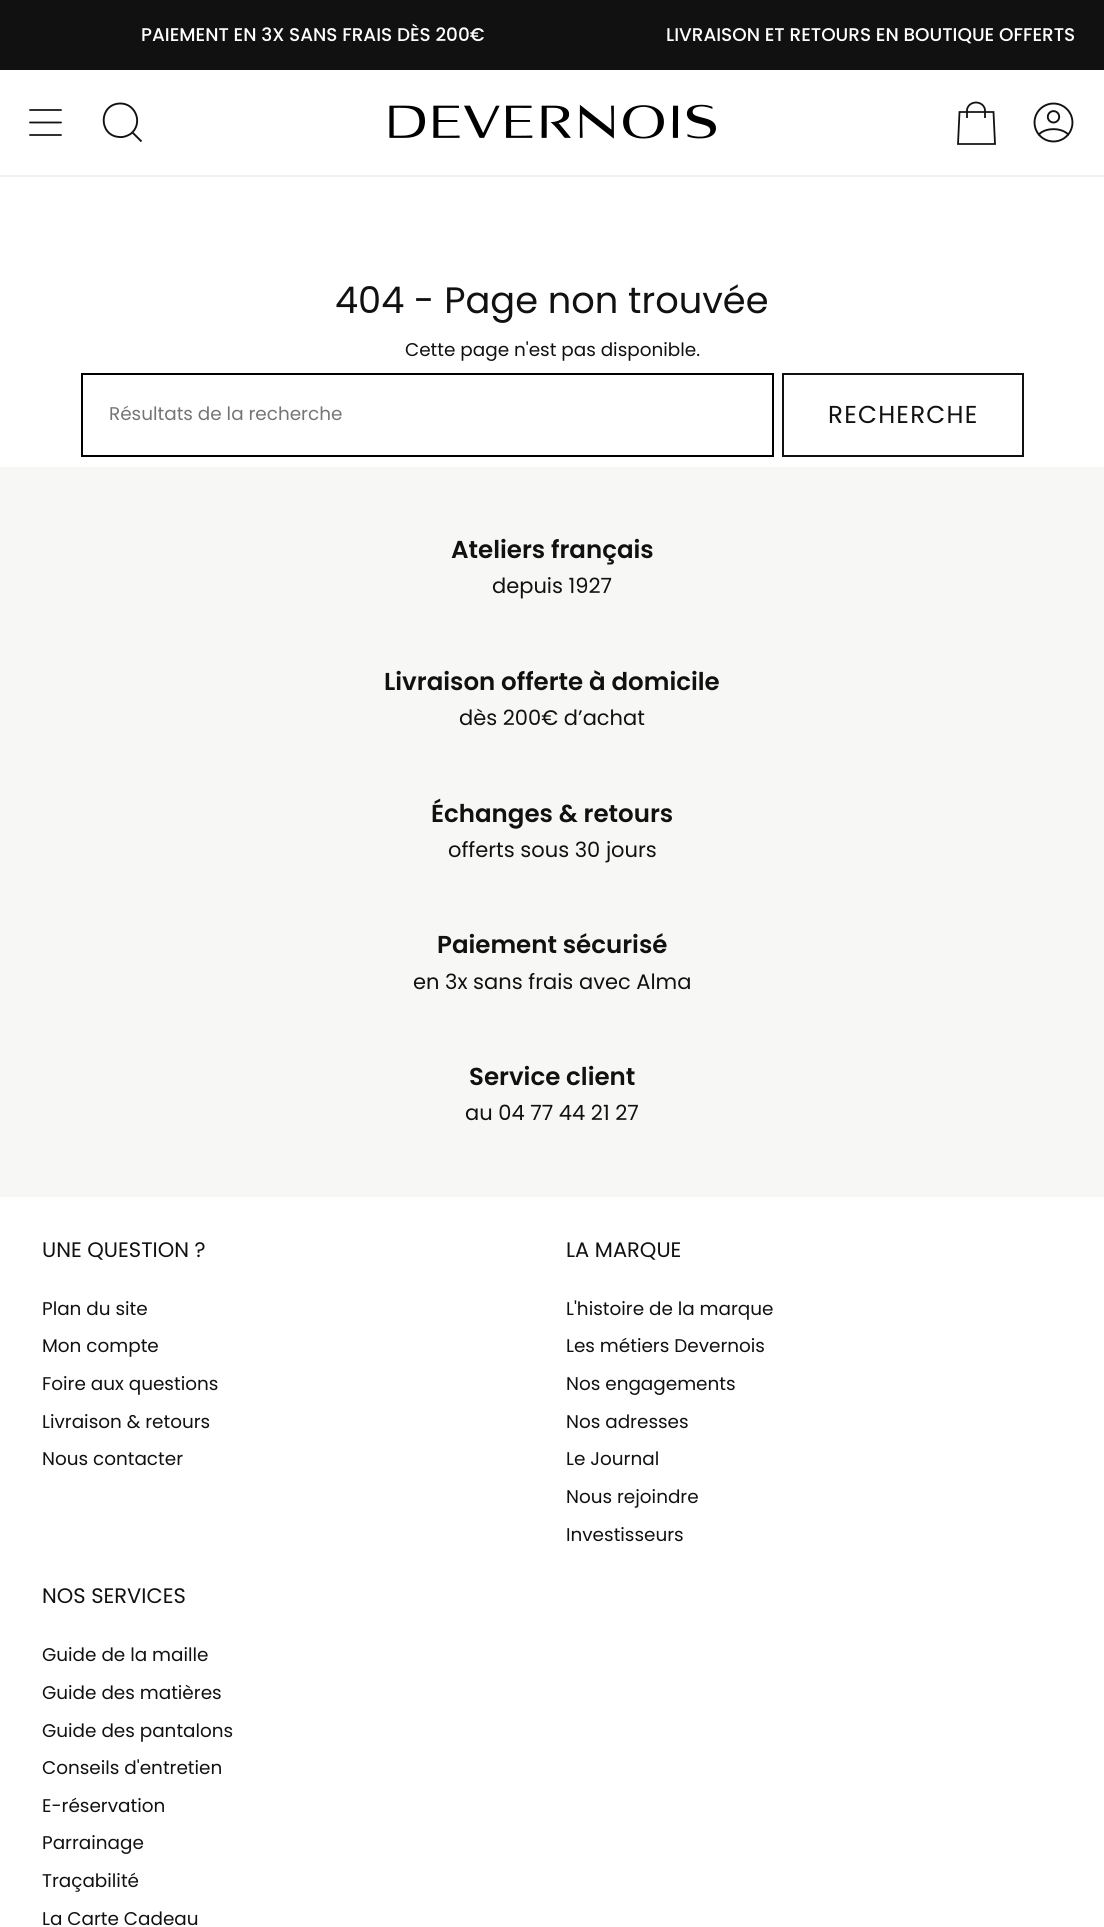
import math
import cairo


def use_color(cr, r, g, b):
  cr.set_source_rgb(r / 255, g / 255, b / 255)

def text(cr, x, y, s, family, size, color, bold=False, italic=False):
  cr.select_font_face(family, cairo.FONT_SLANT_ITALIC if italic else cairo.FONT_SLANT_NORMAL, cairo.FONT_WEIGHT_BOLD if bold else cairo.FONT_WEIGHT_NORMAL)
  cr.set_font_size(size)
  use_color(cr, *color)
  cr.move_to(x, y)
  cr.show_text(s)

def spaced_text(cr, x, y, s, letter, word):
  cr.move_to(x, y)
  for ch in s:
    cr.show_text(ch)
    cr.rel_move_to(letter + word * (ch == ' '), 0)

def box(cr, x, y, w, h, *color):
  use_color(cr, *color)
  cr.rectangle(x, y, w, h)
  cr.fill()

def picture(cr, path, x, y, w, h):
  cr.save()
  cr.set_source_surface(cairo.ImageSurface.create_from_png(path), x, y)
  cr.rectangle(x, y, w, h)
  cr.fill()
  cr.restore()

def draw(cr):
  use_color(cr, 255, 255, 255)
  cr.paint()
  box(cr, 0, 0, 1104, 70, 17, 17, 17)
  box(cr, 0, 175, 1104, 2, 241, 241, 241)
  cr.new_path()
  cr.move_to(30, 110)
  cr.line_to(61, 110)
  cr.move_to(30, 122.5)
  cr.line_to(61, 122.5)
  cr.move_to(30, 135)
  cr.line_to(61, 135)
  use_color(cr, 17, 17, 17)
  cr.set_line_width(1.8)
  cr.set_line_cap(cairo.LINE_CAP_ROUND)
  cr.set_line_join(cairo.LINE_JOIN_ROUND)
  cr.stroke()
  cr.new_path()
  cr.move_to(120.5, 103.5)
  cr.curve_to(136, 103.5, 143.5, 124, 130.5, 134)
  cr.curve_to(127, 136, 123.5, 137.5, 119.5, 137)
  cr.curve_to(98, 136, 98.5, 103.5, 120.5, 103.5)
  cr.close_path()
  cr.move_to(132, 132)
  cr.line_to(141.5, 141.5)
  cr.set_line_width(1.9)
  cr.set_line_cap(cairo.LINE_CAP_BUTT)
  cr.set_line_join(cairo.LINE_JOIN_MITER)
  cr.stroke()
  picture(cr, "img_01.png", 389, 104, 327, 35)
  cr.new_path()
  cr.move_to(995, 144)
  cr.line_to(958, 144)
  cr.line_to(959.5, 112)
  cr.line_to(993.5, 112)
  cr.close_path()
  cr.move_to(985, 118)
  cr.line_to(985, 110)
  cr.curve_to(984.5, 105.5, 980.5, 102.5, 976, 102.5)
  cr.curve_to(971.5, 102.5, 967.5, 105.5, 967, 110)
  cr.line_to(967, 118)
  cr.set_line_width(1.8)
  cr.stroke()
  picture(cr, "img_02.png", 1033, 102, 41, 41)
  cr.rectangle(82, 374, 691, 82)
  use_color(cr, 0, 0, 0)
  cr.set_line_width(2)
  cr.stroke()
  cr.rectangle(783, 374, 240, 82)
  use_color(cr, 17, 17, 17)
  cr.stroke()
  box(cr, 0, 467, 1104, 730, 247, 247, 246)
  text(cr, 141, 41, "PAIEMENT EN 3X SANS FRAIS DÈS 200€", "Poppins Medium", 18.4, (255, 255, 255))
  text(cr, 666, 41, "LIVRAISON ET RETOURS EN BOUTIQUE OFFERTS", "Poppins Medium", 18.4, (255, 255, 255))
  text(cr, 335, 313, "404 - Page non trouvée", "Poppins", 36.75, (17, 17, 17))
  text(cr, 405, 356, "Cette page n'est pas disponible.", "Poppins", 18.4, (17, 17, 17))
  text(cr, 109, 420, "Résultats de la recherche", "Poppins", 18.4, (117, 117, 117))
  cr.set_font_size(24.5)
  use_color(cr, 17, 17, 17)
  spaced_text(cr, 828, 423, "RECHERCHE", 1.25, 0)
  text(cr, 451, 558, "Ateliers français", "Poppins SemiBold", 24.5, (17, 17, 17))
  text(cr, 492, 593, "depuis 1927", "Poppins", 21, (17, 17, 17))
  text(cr, 384, 690, "Livraison offerte à domicile", "Poppins SemiBold", 24.5, (17, 17, 17))
  text(cr, 459, 725, "dès 200€ d’achat", "Poppins", 21, (17, 17, 17))
  text(cr, 431, 822, "Échanges & retours", "Poppins SemiBold", 24.5, (17, 17, 17))
  text(cr, 448, 857, "offerts sous 30 jours", "Poppins", 21, (17, 17, 17))
  text(cr, 437, 953, "Paiement sécurisé", "Poppins SemiBold", 24.5, (17, 17, 17))
  text(cr, 413, 989, "en 3x sans frais avec Alma", "Poppins", 21, (17, 17, 17))
  text(cr, 469, 1085, "Service client", "Poppins SemiBold", 24.5, (17, 17, 17))
  text(cr, 465, 1120, "au 04 77 44 21 27", "Poppins", 21, (17, 17, 17))
  text(cr, 42, 1257, "UNE QUESTION ?", "Poppins", 21, (17, 17, 17))
  text(cr, 42, 1315, "Plan du site", "Poppins", 18.4, (17, 17, 17))
  text(cr, 42, 1352, "Mon compte", "Poppins", 18.4, (17, 17, 17))
  text(cr, 42, 1390, "Foire aux questions", "Poppins", 18.4, (17, 17, 17))
  text(cr, 42, 1428, "Livraison & retours", "Poppins", 18.4, (17, 17, 17))
  text(cr, 42, 1465, "Nous contacter", "Poppins", 18.4, (17, 17, 17))
  text(cr, 566, 1257, "LA MARQUE", "Poppins", 21, (17, 17, 17))
  text(cr, 566, 1315, "L'histoire de la marque", "Poppins", 18.4, (17, 17, 17))
  text(cr, 566, 1352, "Les métiers Devernois", "Poppins", 18.4, (17, 17, 17))
  text(cr, 566, 1390, "Nos engagements", "Poppins", 18.4, (17, 17, 17))
  text(cr, 566, 1428, "Nos adresses", "Poppins", 18.4, (17, 17, 17))
  text(cr, 566, 1465, "Le Journal", "Poppins", 18.4, (17, 17, 17))
  text(cr, 566, 1503, "Nous rejoindre", "Poppins", 18.4, (17, 17, 17))
  text(cr, 566, 1541, "Investisseurs", "Poppins", 18.4, (17, 17, 17))
  text(cr, 42, 1603, "NOS SERVICES", "Poppins", 21, (17, 17, 17))
  text(cr, 42, 1661, "Guide de la maille", "Poppins", 18.4, (17, 17, 17))
  text(cr, 42, 1699, "Guide des matières", "Poppins", 18.4, (17, 17, 17))
  text(cr, 42, 1737, "Guide des pantalons", "Poppins", 18.4, (17, 17, 17))
  text(cr, 42, 1774, "Conseils d'entretien", "Poppins", 18.4, (17, 17, 17))
  text(cr, 42, 1812, "E-réservation", "Poppins", 18.4, (17, 17, 17))
  text(cr, 42, 1849, "Parrainage", "Poppins", 18.4, (17, 17, 17))
  text(cr, 42, 1887, "Traçabilité", "Poppins", 18.4, (17, 17, 17))
  text(cr, 42, 1925, "La Carte Cadeau", "Poppins", 18.4, (17, 17, 17))


surface = cairo.ImageSurface(cairo.FORMAT_RGB24, 1104, 1927)
cr = cairo.Context(surface)
options = cairo.FontOptions()
options.set_hint_metrics(cairo.HINT_METRICS_OFF)
options.set_hint_style(cairo.HINT_STYLE_NONE)
cr.set_font_options(options)
cr.set_miter_limit(4)
draw(cr)
surface.write_to_png("out.png")
